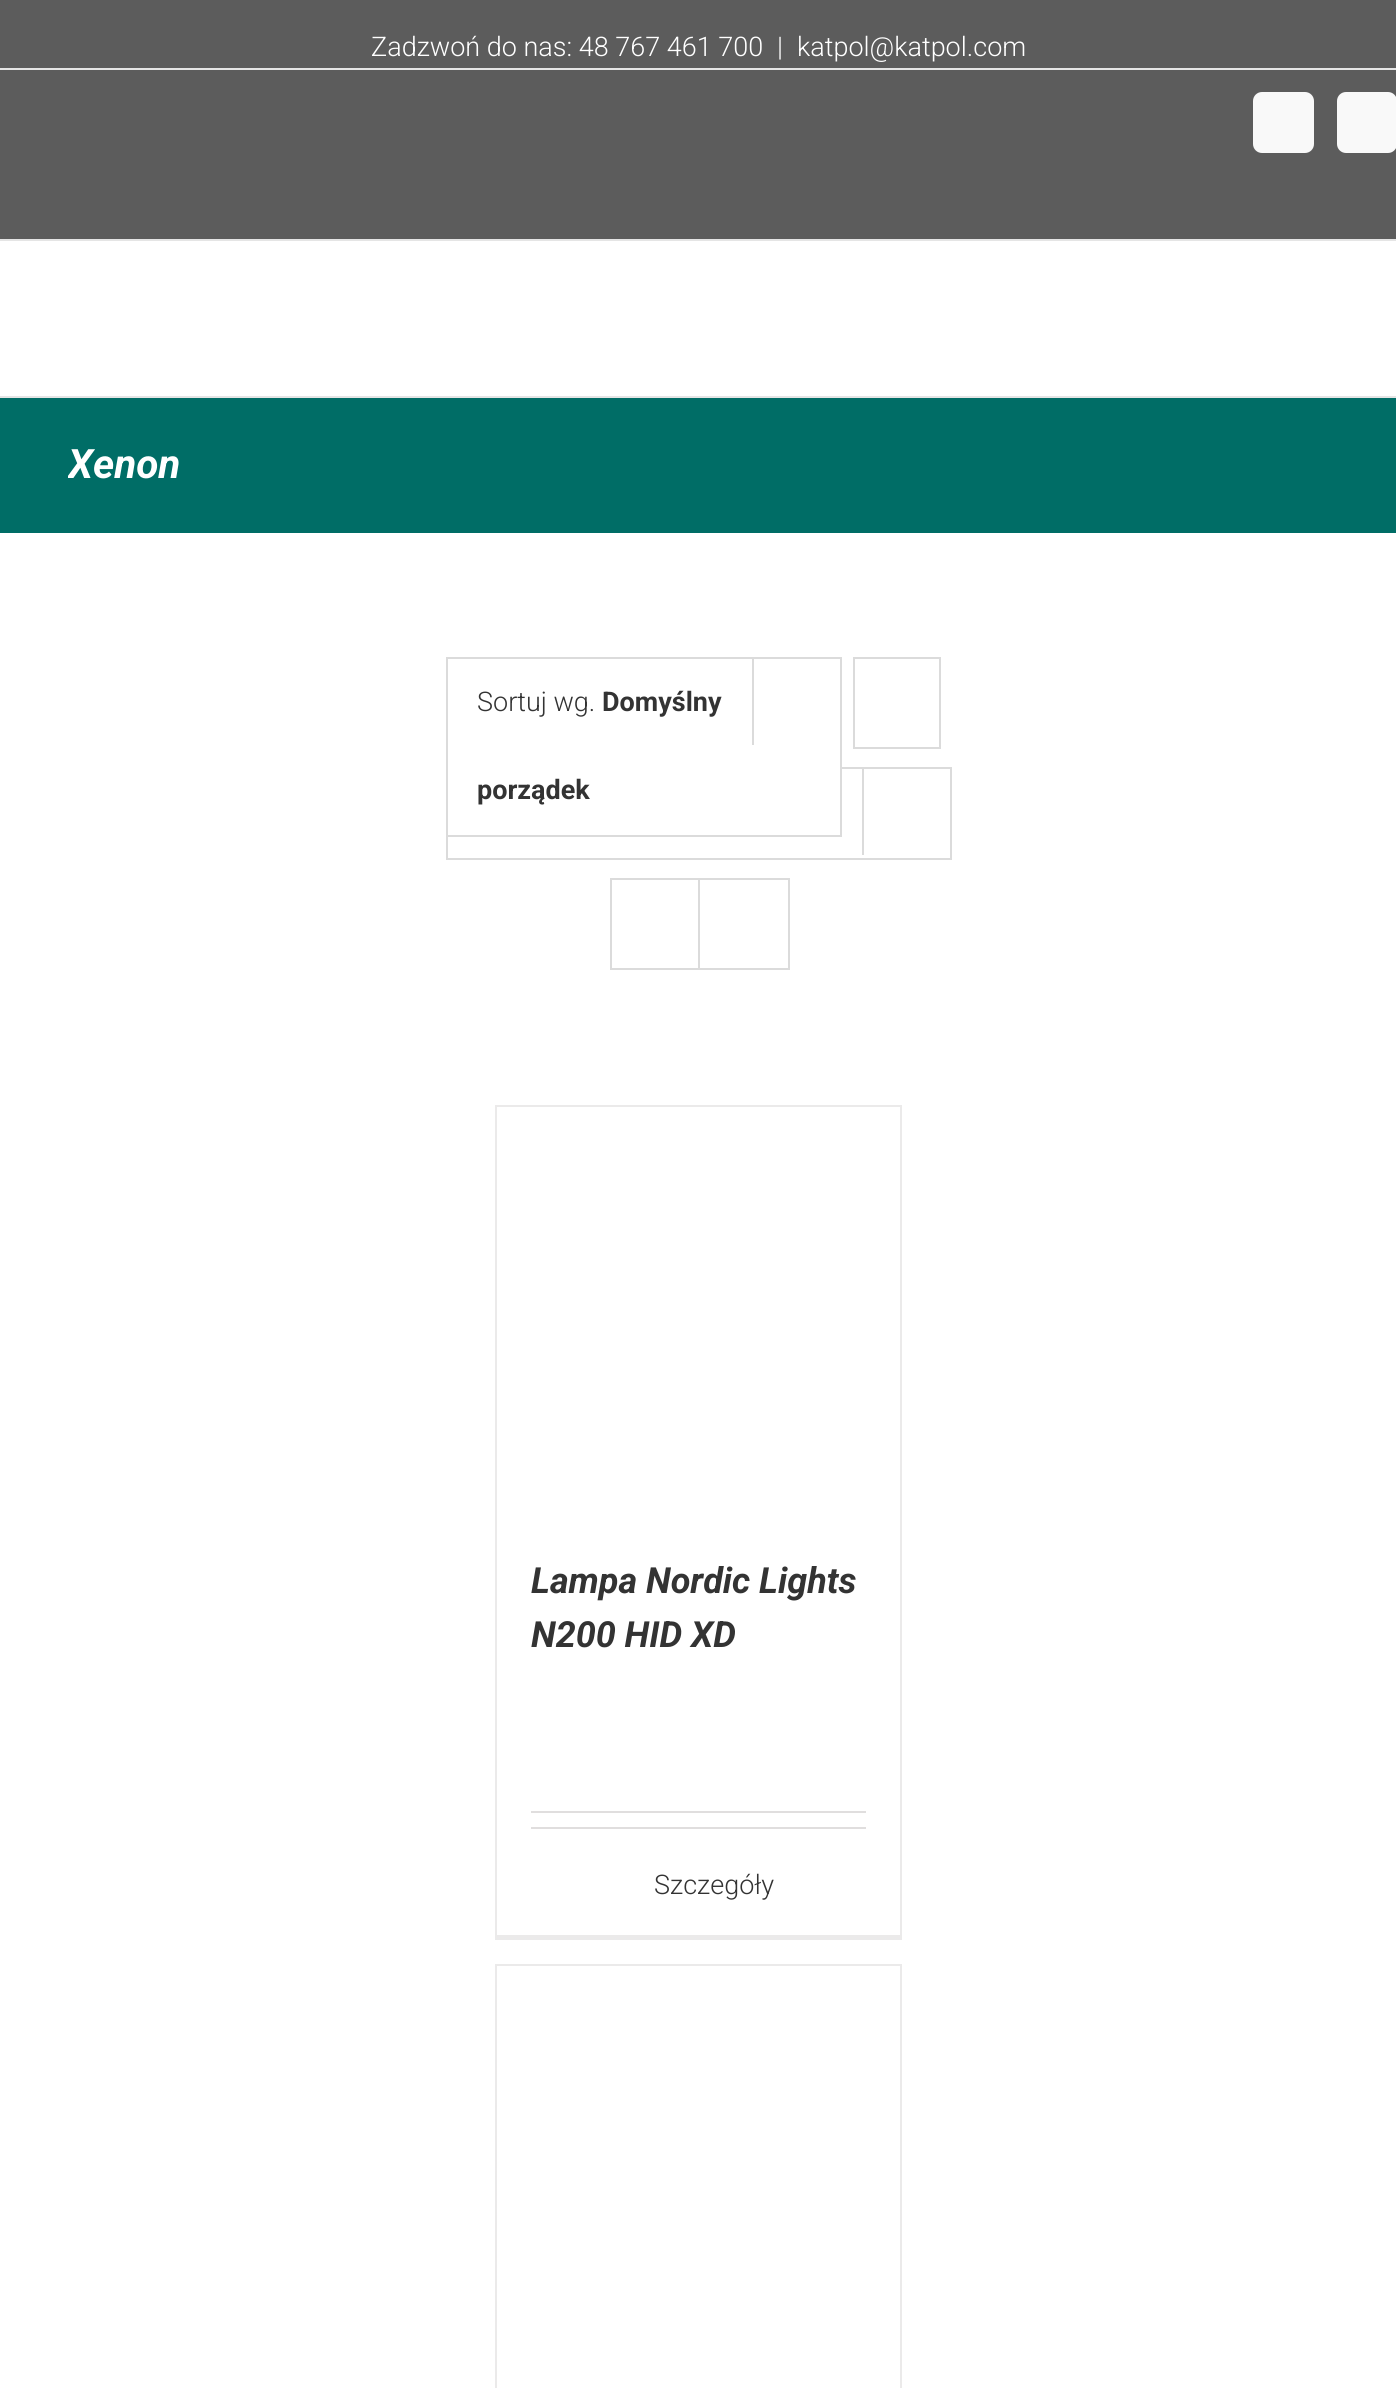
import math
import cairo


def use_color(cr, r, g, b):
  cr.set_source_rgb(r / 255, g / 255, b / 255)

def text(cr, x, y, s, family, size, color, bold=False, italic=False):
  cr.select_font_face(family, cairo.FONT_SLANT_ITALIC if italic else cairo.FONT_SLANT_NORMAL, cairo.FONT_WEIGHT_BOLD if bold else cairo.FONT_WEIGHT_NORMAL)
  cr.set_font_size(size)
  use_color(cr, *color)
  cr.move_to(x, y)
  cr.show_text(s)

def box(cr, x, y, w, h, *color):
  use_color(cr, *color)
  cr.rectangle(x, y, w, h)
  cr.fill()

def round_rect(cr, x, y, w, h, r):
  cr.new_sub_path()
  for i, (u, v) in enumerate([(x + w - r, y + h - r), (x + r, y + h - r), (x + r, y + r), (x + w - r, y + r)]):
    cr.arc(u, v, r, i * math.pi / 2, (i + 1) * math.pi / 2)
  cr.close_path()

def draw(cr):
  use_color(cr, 255, 255, 255)
  cr.paint()
  box(cr, 0, 0, 1396, 239, 92, 92, 92)
  box(cr, 0, 239, 1396, 2, 229, 229, 229)
  box(cr, 0, 68, 1396, 2, 229, 229, 229)
  use_color(cr, 249, 249, 249)
  round_rect(cr, 1254, 93, 59, 59, 8)
  cr.fill_preserve()
  cr.stroke()
  round_rect(cr, 1338, 93, 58, 59, 8)
  cr.fill_preserve()
  cr.stroke()
  box(cr, 0, 396, 1396, 2, 229, 229, 229)
  box(cr, 0, 398, 1396, 135, 0, 109, 102)
  cr.rectangle(447, 768, 504, 91)
  use_color(cr, 219, 219, 219)
  cr.stroke()
  box(cr, 448, 767, 392, 2, 255, 255, 255)
  cr.rectangle(447, 658, 394, 178)
  use_color(cr, 219, 219, 219)
  cr.stroke()
  box(cr, 752, 657, 2, 88, 219, 219, 219)
  cr.rectangle(854, 658, 86, 90)
  cr.stroke()
  box(cr, 862, 767, 2, 88, 219, 219, 219)
  cr.rectangle(611, 879, 178, 90)
  cr.stroke()
  box(cr, 698, 880, 2, 88, 219, 219, 219)
  box(cr, 495, 1105, 407, 2, 235, 234, 234)
  box(cr, 900, 1105, 2, 835, 235, 234, 234)
  box(cr, 495, 1935, 407, 5, 235, 234, 234)
  box(cr, 495, 1105, 2, 835, 235, 234, 234)
  box(cr, 531, 1811, 335, 2, 224, 222, 222)
  box(cr, 531, 1827, 335, 2, 224, 222, 222)
  box(cr, 495, 1964, 407, 2, 235, 234, 234)
  box(cr, 900, 1964, 2, 424, 235, 234, 234)
  box(cr, 495, 1964, 2, 424, 235, 234, 234)
  text(cr, 371, 56, "Zadzwoń do nas: 48 767 461 700", "Roboto Light", 27, (255, 255, 255))
  text(cr, 777, 56, "|", "Roboto Light", 27, (255, 255, 255))
  text(cr, 797, 56, "katpol@katpol.com", "Roboto Light", 27, (255, 255, 255))
  cr.save()
  cr.rectangle(68, 410, 1262, 112)
  cr.clip()
  text(cr, 68, 478, "Xenon", "Roboto", 40.5, (255, 255, 255), bold=True, italic=True)
  cr.restore()
  text(cr, 477, 711, "Sortuj wg.", "Roboto Light", 27, (51, 51, 51))
  text(cr, 602, 711, "Domyślny", "Roboto", 27, (51, 51, 51), bold=True)
  text(cr, 477, 799, "porządek", "Roboto", 27, (51, 51, 51), bold=True)
  text(cr, 531, 1593, "Lampa Nordic Lights", "Roboto", 36, (51, 51, 51), bold=True, italic=True)
  text(cr, 531, 1647, "N200 HID XD", "Roboto", 36, (51, 51, 51), bold=True, italic=True)
  text(cr, 654, 1894, "Szczegóły", "Roboto Light", 27, (51, 51, 51))


surface = cairo.ImageSurface(cairo.FORMAT_RGB24, 1396, 2388)
cr = cairo.Context(surface)
options = cairo.FontOptions()
options.set_hint_metrics(cairo.HINT_METRICS_OFF)
options.set_hint_style(cairo.HINT_STYLE_NONE)
cr.set_font_options(options)
cr.set_miter_limit(4)
draw(cr)
surface.write_to_png("out.png")
